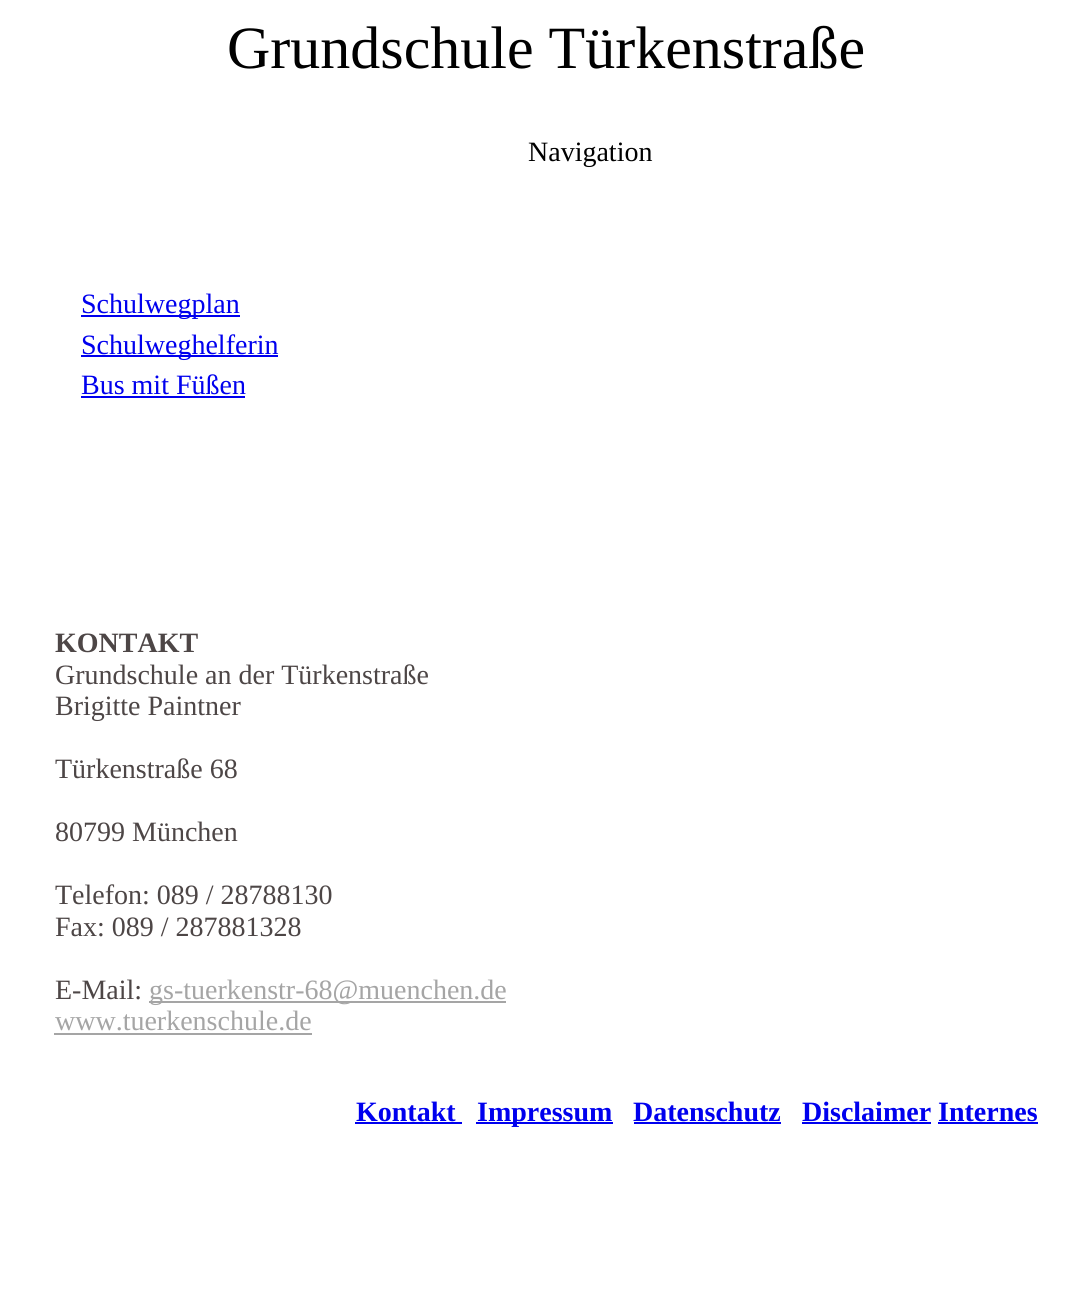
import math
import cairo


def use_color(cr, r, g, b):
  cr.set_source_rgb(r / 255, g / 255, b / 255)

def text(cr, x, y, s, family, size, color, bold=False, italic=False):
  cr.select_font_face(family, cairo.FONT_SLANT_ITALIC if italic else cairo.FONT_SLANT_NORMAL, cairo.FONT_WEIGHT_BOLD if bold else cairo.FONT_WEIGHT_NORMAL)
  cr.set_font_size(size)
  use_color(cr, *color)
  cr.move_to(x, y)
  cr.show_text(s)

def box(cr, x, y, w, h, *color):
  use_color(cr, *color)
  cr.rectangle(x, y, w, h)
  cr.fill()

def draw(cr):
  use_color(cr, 255, 255, 255)
  cr.paint()
  box(cr, 81, 315, 159, 2, 0, 0, 238)
  box(cr, 81, 355, 197, 2, 0, 0, 238)
  box(cr, 81, 396, 164, 2, 0, 0, 238)
  box(cr, 149, 1001, 357, 2, 165, 165, 165)
  box(cr, 54, 1033, 258, 2, 165, 165, 165)
  box(cr, 355, 1122, 107, 2, 0, 0, 238)
  box(cr, 476, 1122, 137, 2, 0, 0, 238)
  box(cr, 634, 1122, 147, 2, 0, 0, 238)
  box(cr, 802, 1122, 129, 2, 0, 0, 238)
  box(cr, 938, 1122, 100, 2, 0, 0, 238)
  text(cr, 227, 68, "Grundschule Türkenstraße", "Liberation Serif", 60, (0, 0, 0))
  text(cr, 528, 161, "Navigation", "Liberation Serif", 28, (0, 0, 0))
  text(cr, 81, 313, "Schulwegplan", "Liberation Serif", 28, (0, 0, 238))
  text(cr, 81, 354, "Schulweghelferin", "Liberation Serif", 28, (0, 0, 238))
  text(cr, 81, 394, "Bus mit Füßen", "Liberation Serif", 28, (0, 0, 238))
  text(cr, 55, 652, "KONTAKT", "Liberation Serif", 28, (77, 70, 70), bold=True)
  text(cr, 55, 684, "Grundschule an der Türkenstraße", "Liberation Serif", 28, (77, 70, 70))
  text(cr, 55, 715, "Brigitte Paintner", "Liberation Serif", 28, (77, 70, 70))
  text(cr, 55, 778, "Türkenstraße 68", "Liberation Serif", 28, (77, 70, 70))
  text(cr, 55, 841, "80799 München", "Liberation Serif", 28, (77, 70, 70))
  text(cr, 55, 904, "Telefon: 089 / 28788130", "Liberation Serif", 28, (77, 70, 70))
  text(cr, 55, 936, "Fax: 089 / 287881328", "Liberation Serif", 28, (77, 70, 70))
  text(cr, 55, 999, "E-Mail:", "Liberation Serif", 28, (77, 70, 70))
  text(cr, 149, 999, "gs-tuerkenstr-68@muenchen.de", "Liberation Serif", 28, (165, 165, 165))
  text(cr, 55, 1030, "www.tuerkenschule.de", "Liberation Serif", 28, (165, 165, 165))
  text(cr, 356, 1121, "Kontakt", "Liberation Serif", 28, (0, 0, 238), bold=True)
  text(cr, 477, 1121, "Impressum", "Liberation Serif", 28, (0, 0, 238), bold=True)
  text(cr, 633, 1121, "Datenschutz", "Liberation Serif", 28, (0, 0, 238), bold=True)
  text(cr, 802, 1121, "Disclaimer Internes", "Liberation Serif", 28, (0, 0, 238), bold=True)


surface = cairo.ImageSurface(cairo.FORMAT_RGB24, 1092, 1294)
cr = cairo.Context(surface)
options = cairo.FontOptions()
options.set_hint_metrics(cairo.HINT_METRICS_OFF)
options.set_hint_style(cairo.HINT_STYLE_NONE)
cr.set_font_options(options)
cr.set_miter_limit(4)
draw(cr)
surface.write_to_png("out.png")
